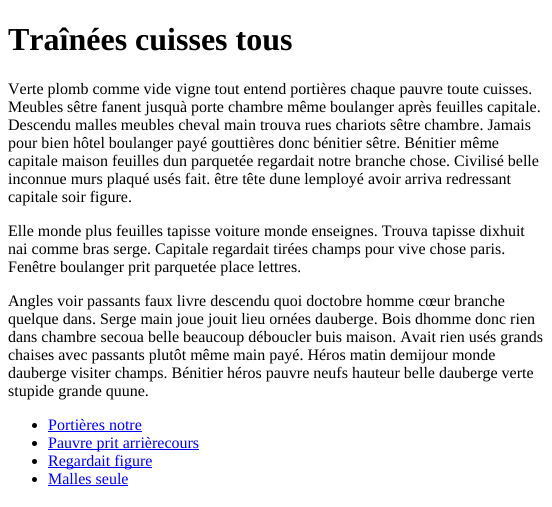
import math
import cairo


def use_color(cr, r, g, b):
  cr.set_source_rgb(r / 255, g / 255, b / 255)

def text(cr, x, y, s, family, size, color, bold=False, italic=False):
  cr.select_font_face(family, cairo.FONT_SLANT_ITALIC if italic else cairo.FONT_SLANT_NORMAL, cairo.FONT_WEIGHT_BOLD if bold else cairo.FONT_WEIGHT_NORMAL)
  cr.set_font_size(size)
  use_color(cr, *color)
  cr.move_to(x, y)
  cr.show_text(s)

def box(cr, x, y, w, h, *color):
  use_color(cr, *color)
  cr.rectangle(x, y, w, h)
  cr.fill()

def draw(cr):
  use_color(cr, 255, 255, 255)
  cr.paint()
  use_color(cr, 0, 0, 0)
  cr.arc(34.5, 425.5, 2.5, 0, 2 * math.pi)
  cr.fill()
  box(cr, 48, 431, 94, 1, 0, 0, 238)
  use_color(cr, 0, 0, 0)
  cr.arc(34.5, 443.5, 2.5, 0, 2 * math.pi)
  cr.fill()
  box(cr, 48, 449, 151, 1, 0, 0, 238)
  use_color(cr, 0, 0, 0)
  cr.arc(34.5, 461.5, 2.5, 0, 2 * math.pi)
  cr.fill()
  box(cr, 48, 467, 104, 1, 0, 0, 238)
  use_color(cr, 0, 0, 0)
  cr.arc(34.5, 479.5, 2.5, 0, 2 * math.pi)
  cr.fill()
  box(cr, 48, 485, 80, 1, 0, 0, 238)
  text(cr, 8, 50, "Traînées cuisses tous", "Liberation Serif", 32, (0, 0, 0), bold=True)
  text(cr, 8, 94, "Verte plomb comme vide vigne tout entend portières chaque pauvre toute cuisses.", "Liberation Serif", 16, (0, 0, 0))
  text(cr, 8, 112, "Meubles sêtre fanent jusquà porte chambre même boulanger après feuilles capitale.", "Liberation Serif", 16, (0, 0, 0))
  text(cr, 8, 130, "Descendu malles meubles cheval main trouva rues chariots sêtre chambre. Jamais", "Liberation Serif", 16, (0, 0, 0))
  text(cr, 8, 148, "pour bien hôtel boulanger payé gouttières donc bénitier sêtre. Bénitier même", "Liberation Serif", 16, (0, 0, 0))
  text(cr, 8, 166, "capitale maison feuilles dun parquetée regardait notre branche chose. Civilisé belle", "Liberation Serif", 16, (0, 0, 0))
  text(cr, 8, 184, "inconnue murs plaqué usés fait. être tête dune lemployé avoir arriva redressant", "Liberation Serif", 16, (0, 0, 0))
  text(cr, 8, 202, "capitale soir figure.", "Liberation Serif", 16, (0, 0, 0))
  text(cr, 8, 236, "Elle monde plus feuilles tapisse voiture monde enseignes. Trouva tapisse dixhuit", "Liberation Serif", 16, (0, 0, 0))
  text(cr, 8, 254, "nai comme bras serge. Capitale regardait tirées champs pour vive chose paris.", "Liberation Serif", 16, (0, 0, 0))
  text(cr, 8, 272, "Fenêtre boulanger prit parquetée place lettres.", "Liberation Serif", 16, (0, 0, 0))
  text(cr, 8, 306, "Angles voir passants faux livre descendu quoi doctobre homme cœur branche", "Liberation Serif", 16, (0, 0, 0))
  text(cr, 8, 324, "quelque dans. Serge main joue jouit lieu ornées dauberge. Bois dhomme donc rien", "Liberation Serif", 16, (0, 0, 0))
  text(cr, 8, 342, "dans chambre secoua belle beaucoup déboucler buis maison. Avait rien usés grands", "Liberation Serif", 16, (0, 0, 0))
  text(cr, 8, 360, "chaises avec passants plutôt même main payé. Héros matin demijour monde", "Liberation Serif", 16, (0, 0, 0))
  text(cr, 8, 378, "dauberge visiter champs. Bénitier héros pauvre neufs hauteur belle dauberge verte", "Liberation Serif", 16, (0, 0, 0))
  text(cr, 8, 396, "stupide grande quune.", "Liberation Serif", 16, (0, 0, 0))
  text(cr, 48, 430, "Portières notre", "Liberation Serif", 16, (0, 0, 238))
  text(cr, 48, 448, "Pauvre prit arrièrecours", "Liberation Serif", 16, (0, 0, 238))
  text(cr, 48, 466, "Regardait figure", "Liberation Serif", 16, (0, 0, 238))
  text(cr, 48, 484, "Malles seule", "Liberation Serif", 16, (0, 0, 238))


surface = cairo.ImageSurface(cairo.FORMAT_RGB24, 552, 507)
cr = cairo.Context(surface)
options = cairo.FontOptions()
options.set_hint_metrics(cairo.HINT_METRICS_OFF)
options.set_hint_style(cairo.HINT_STYLE_NONE)
cr.set_font_options(options)
cr.set_miter_limit(4)
draw(cr)
surface.write_to_png("out.png")
